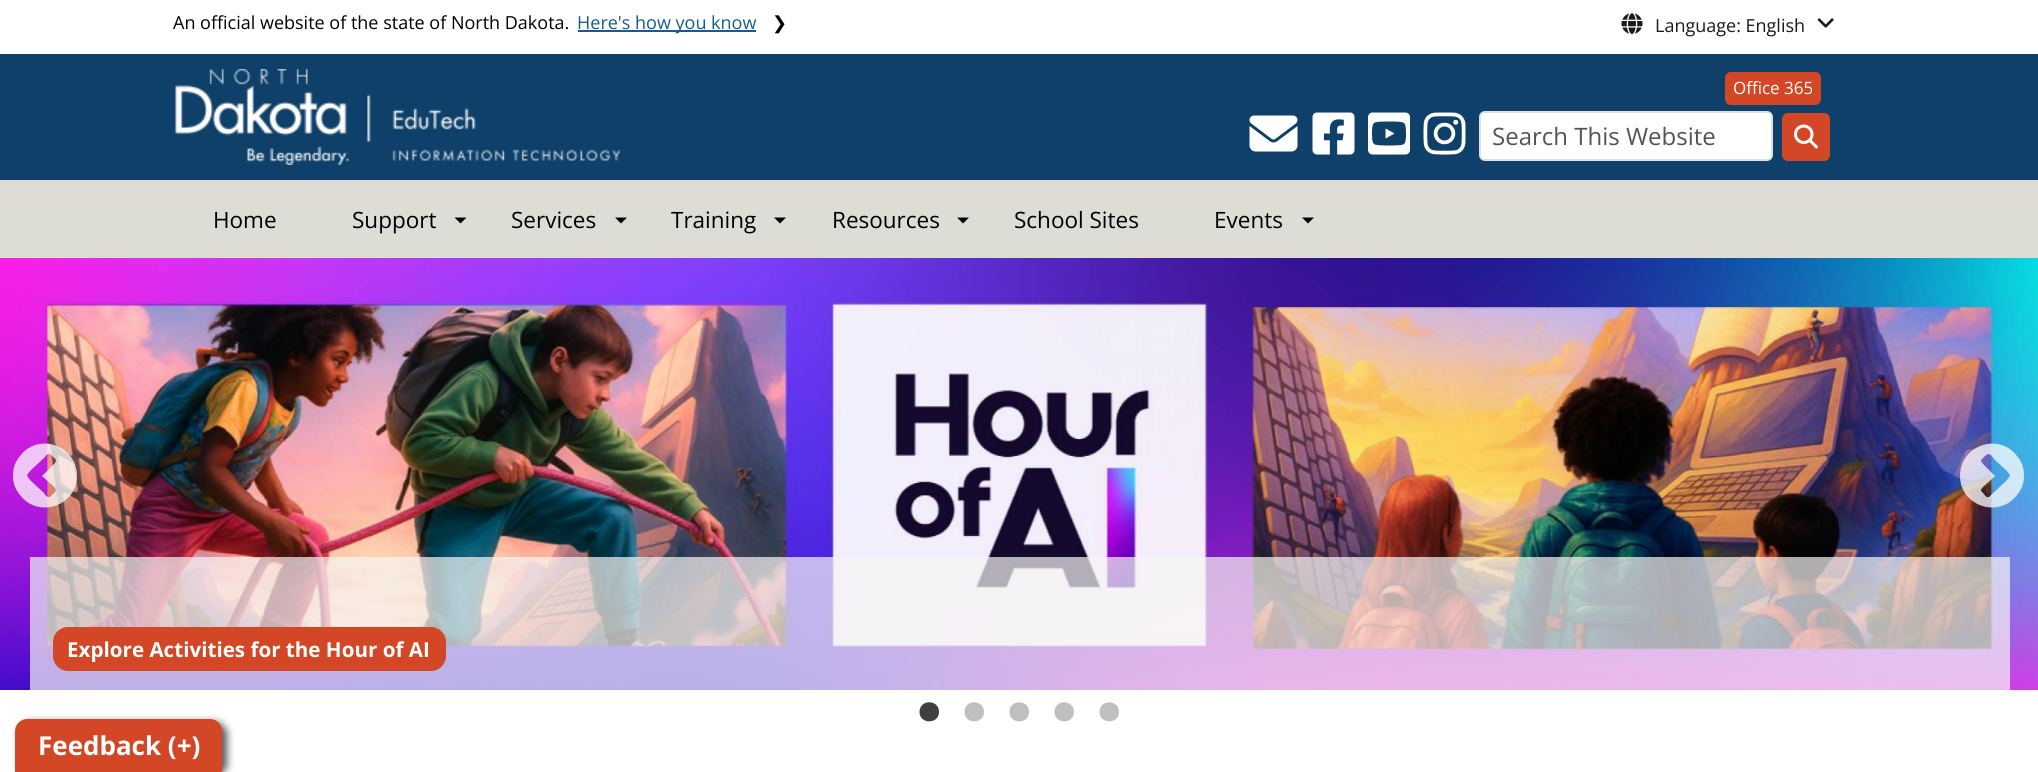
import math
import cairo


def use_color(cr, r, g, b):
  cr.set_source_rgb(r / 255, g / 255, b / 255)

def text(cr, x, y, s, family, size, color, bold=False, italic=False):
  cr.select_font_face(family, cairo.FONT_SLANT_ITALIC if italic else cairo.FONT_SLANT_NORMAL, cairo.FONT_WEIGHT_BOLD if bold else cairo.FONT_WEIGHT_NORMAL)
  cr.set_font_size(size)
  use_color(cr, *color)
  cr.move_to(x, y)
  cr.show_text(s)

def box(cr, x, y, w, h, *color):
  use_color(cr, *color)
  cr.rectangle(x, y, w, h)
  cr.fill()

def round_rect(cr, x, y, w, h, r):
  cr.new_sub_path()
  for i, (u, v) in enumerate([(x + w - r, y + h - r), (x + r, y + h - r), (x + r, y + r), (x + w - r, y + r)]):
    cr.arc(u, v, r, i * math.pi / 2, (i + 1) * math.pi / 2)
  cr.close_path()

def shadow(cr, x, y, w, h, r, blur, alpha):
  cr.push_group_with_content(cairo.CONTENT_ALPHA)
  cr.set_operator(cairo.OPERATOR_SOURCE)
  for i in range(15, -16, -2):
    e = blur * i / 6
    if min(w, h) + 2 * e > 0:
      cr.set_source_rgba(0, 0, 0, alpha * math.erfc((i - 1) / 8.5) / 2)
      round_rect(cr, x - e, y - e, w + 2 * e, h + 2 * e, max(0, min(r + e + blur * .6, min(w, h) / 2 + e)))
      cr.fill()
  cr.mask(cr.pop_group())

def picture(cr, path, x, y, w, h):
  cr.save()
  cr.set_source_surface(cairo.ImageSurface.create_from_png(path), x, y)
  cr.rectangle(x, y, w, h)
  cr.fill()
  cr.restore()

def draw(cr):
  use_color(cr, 255, 255, 255)
  cr.paint()
  box(cr, 578, 30, 178, 2, 22, 92, 146)
  picture(cr, "img_01.png", 1621, 13, 22, 22)
  picture(cr, "img_02.png", 1817, 18, 17, 10)
  box(cr, 0, 54, 2038, 126, 14, 64, 106)
  picture(cr, "img_03.png", 175, 69, 446, 96)
  use_color(cr, 211, 71, 39)
  round_rect(cr, 1725, 72, 96, 33, 6)
  cr.fill()
  picture(cr, "img_04.png", 1249, 115, 49, 37)
  picture(cr, "img_05.png", 1312, 112, 43, 43)
  picture(cr, "img_06.png", 1368, 112, 42, 43)
  picture(cr, "img_07.png", 1423, 112, 43, 43)
  use_color(cr, 255, 255, 255)
  round_rect(cr, 1480, 112, 292, 48, 5)
  cr.fill_preserve()
  use_color(cr, 222, 226, 230)
  cr.stroke()
  use_color(cr, 211, 71, 39)
  round_rect(cr, 1782, 113, 48, 48, 6)
  cr.fill()
  picture(cr, "img_08.png", 1794, 124, 24, 25)
  box(cr, 0, 180, 2038, 78, 221, 221, 213)
  use_color(cr, 0, 0, 0)
  cr.new_path()
  cr.move_to(454.5, 217.5)
  cr.line_to(466.5, 217.5)
  cr.line_to(460.5, 223.5)
  cr.close_path()
  cr.fill()
  cr.new_path()
  cr.move_to(615, 217.5)
  cr.line_to(627, 217.5)
  cr.line_to(621, 223.5)
  cr.close_path()
  cr.fill()
  cr.new_path()
  cr.move_to(774, 217.5)
  cr.line_to(786, 217.5)
  cr.line_to(780, 223.5)
  cr.close_path()
  cr.fill()
  cr.new_path()
  cr.move_to(957, 217.5)
  cr.line_to(969, 217.5)
  cr.line_to(963, 223.5)
  cr.close_path()
  cr.fill()
  cr.new_path()
  cr.move_to(1302, 217.5)
  cr.line_to(1314, 217.5)
  cr.line_to(1308, 223.5)
  cr.close_path()
  cr.fill()
  picture(cr, "img_09.png", 0, 258, 2038, 432)
  cr.set_source_rgba(1, 1, 1, 0.75)
  cr.new_path()
  cr.move_to(51, 496)
  cr.curve_to(48, 499, 45, 495, 44, 493)
  cr.line_to(31, 481)
  cr.curve_to(26, 475, 26, 476, 31, 470)
  cr.line_to(44, 458)
  cr.curve_to(48, 453, 49, 452, 53, 457)
  cr.curve_to(55, 458, 57, 460, 55, 463)
  cr.line_to(42, 476)
  cr.line_to(53, 486)
  cr.curve_to(58, 491, 56, 491, 51, 496)
  cr.close_path()
  cr.move_to(77, 476)
  cr.curve_to(77, 445, 38, 432, 20, 456)
  cr.curve_to(15, 462, 13, 468, 13, 476)
  cr.curve_to(13, 483, 15, 489, 20, 495)
  cr.curve_to(38, 519, 77, 506, 77, 476)
  cr.close_path()
  cr.fill()
  cr.new_path()
  cr.move_to(1990, 496)
  cr.curve_to(1988, 499, 1985, 496, 1984, 494)
  cr.curve_to(1980, 490, 1980, 490, 1984, 486)
  cr.line_to(1995, 476)
  cr.line_to(1984, 465)
  cr.curve_to(1979, 460, 1981, 460, 1985, 456)
  cr.curve_to(1990, 451, 1992, 457, 1996, 461)
  cr.line_to(2006, 470)
  cr.curve_to(2011, 476, 2011, 475, 2006, 481)
  cr.close_path()
  cr.move_to(2024, 476)
  cr.curve_to(2024, 468, 2022, 462, 2017, 456)
  cr.curve_to(1999, 432, 1960, 445, 1960, 476)
  cr.curve_to(1960, 506, 1999, 519, 2017, 495)
  cr.curve_to(2022, 489, 2024, 483, 2024, 476)
  cr.close_path()
  cr.fill()
  cr.set_source_rgba(0.969, 0.965, 0.957, 0.7)
  cr.rectangle(30, 557, 1980, 133)
  cr.fill()
  use_color(cr, 211, 71, 39)
  round_rect(cr, 53, 627, 393, 44, 15)
  cr.fill()
  use_color(cr, 64, 64, 64)
  cr.new_path()
  cr.move_to(939, 712)
  cr.curve_to(939, 699, 919.5, 699, 919.5, 712)
  cr.curve_to(919.5, 724.5, 939, 724.5, 939, 712)
  cr.close_path()
  cr.fill()
  use_color(cr, 191, 191, 191)
  cr.new_path()
  cr.move_to(984, 712)
  cr.curve_to(984, 699, 964.5, 699, 964.5, 712)
  cr.curve_to(964.5, 724.5, 984, 724.5, 984, 712)
  cr.close_path()
  cr.fill()
  cr.new_path()
  cr.move_to(1029, 712)
  cr.curve_to(1029, 699, 1009.5, 699, 1009.5, 712)
  cr.curve_to(1009.5, 724.5, 1029, 724.5, 1029, 712)
  cr.close_path()
  cr.fill()
  cr.new_path()
  cr.move_to(1074, 712)
  cr.curve_to(1074, 699, 1054.5, 699, 1054.5, 712)
  cr.curve_to(1054.5, 724.5, 1074, 724.5, 1074, 712)
  cr.close_path()
  cr.fill()
  cr.new_path()
  cr.move_to(1119, 712)
  cr.curve_to(1119, 699, 1099.5, 699, 1099.5, 712)
  cr.curve_to(1099.5, 724.5, 1119, 724.5, 1119, 712)
  cr.close_path()
  cr.fill()
  use_color(cr, 85, 85, 85)
  shadow(cr, 20, 722, 207, 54, 12, 4, 1)
  use_color(cr, 211, 71, 39)
  cr.new_path()
  cr.move_to(27, 719)
  cr.line_to(210, 719)
  cr.curve_to(216.5, 719, 222, 724.5, 222, 731)
  cr.line_to(222, 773)
  cr.line_to(15, 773)
  cr.line_to(15, 731)
  cr.curve_to(15, 724.5, 20.5, 719, 27, 719)
  cr.close_path()
  cr.fill()
  text(cr, 173, 29, "An official website of the state of North Dakota.", "Open Sans", 18, (0, 0, 0))
  text(cr, 577, 29, "Here's how you know", "Open Sans", 18, (22, 92, 146))
  text(cr, 772, 29, "❯", "DejaVu Sans", 18, (0, 0, 0))
  text(cr, 1655, 32, "Language: English", "Open Sans", 18, (26, 26, 26))
  text(cr, 1733, 94, "Office 365", "Open Sans", 17, (255, 255, 255))
  text(cr, 1492, 145, "Search This Website", "Open Sans", 24, (84, 84, 84))
  text(cr, 213, 228, "Home", "Open Sans", 22.5, (0, 0, 0))
  text(cr, 352, 228, "Support", "Open Sans", 22.5, (0, 0, 0))
  text(cr, 511, 228, "Services", "Open Sans", 22.5, (0, 0, 0))
  text(cr, 671, 228, "Training", "Open Sans", 22.5, (0, 0, 0))
  text(cr, 832, 228, "Resources", "Open Sans", 22.5, (0, 0, 0))
  text(cr, 1014, 228, "School Sites", "Open Sans", 22.5, (0, 0, 0))
  text(cr, 1214, 228, "Events", "Open Sans", 22.5, (0, 0, 0))
  text(cr, 67, 657, "Explore Activities for the Hour of AI", "Open Sans", 20.6, (255, 255, 255), bold=True)
  text(cr, 38, 755, "Feedback (+)", "Open Sans", 26, (255, 255, 255), bold=True)


surface = cairo.ImageSurface(cairo.FORMAT_RGB24, 2038, 772)
cr = cairo.Context(surface)
options = cairo.FontOptions()
options.set_hint_metrics(cairo.HINT_METRICS_OFF)
options.set_hint_style(cairo.HINT_STYLE_NONE)
cr.set_font_options(options)
cr.set_miter_limit(4)
draw(cr)
surface.write_to_png("out.png")
